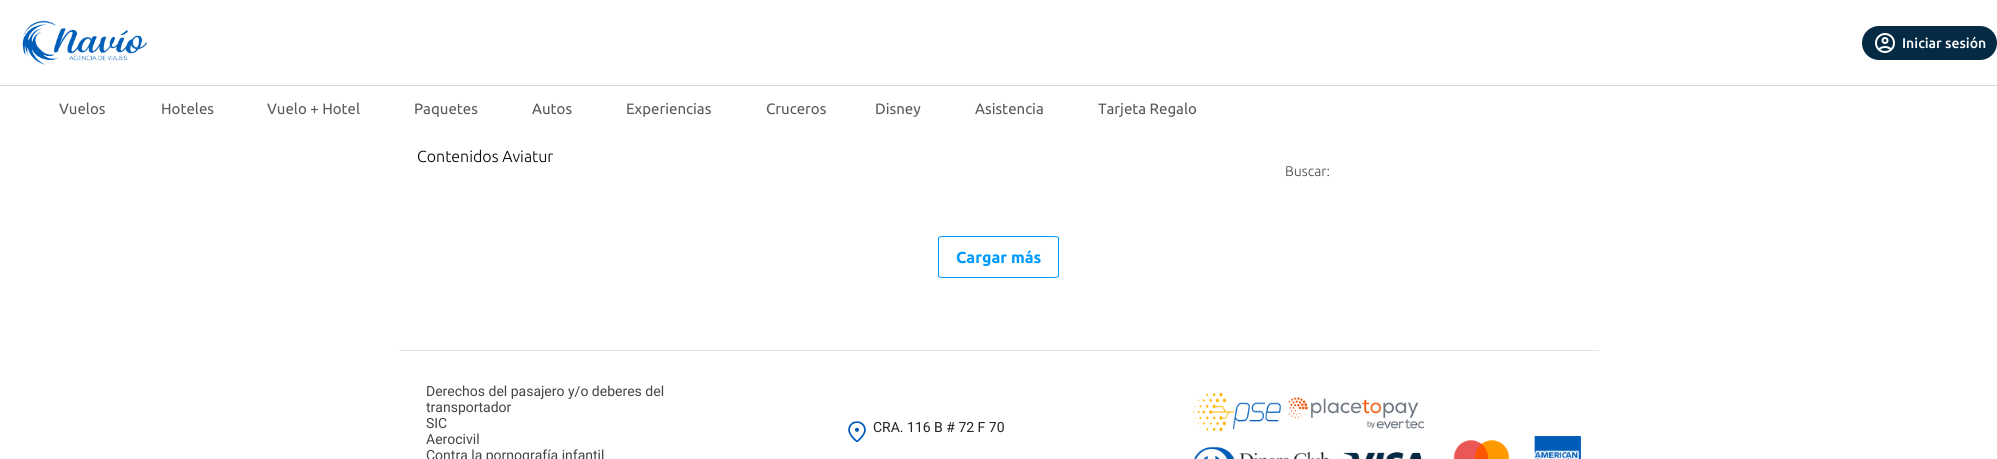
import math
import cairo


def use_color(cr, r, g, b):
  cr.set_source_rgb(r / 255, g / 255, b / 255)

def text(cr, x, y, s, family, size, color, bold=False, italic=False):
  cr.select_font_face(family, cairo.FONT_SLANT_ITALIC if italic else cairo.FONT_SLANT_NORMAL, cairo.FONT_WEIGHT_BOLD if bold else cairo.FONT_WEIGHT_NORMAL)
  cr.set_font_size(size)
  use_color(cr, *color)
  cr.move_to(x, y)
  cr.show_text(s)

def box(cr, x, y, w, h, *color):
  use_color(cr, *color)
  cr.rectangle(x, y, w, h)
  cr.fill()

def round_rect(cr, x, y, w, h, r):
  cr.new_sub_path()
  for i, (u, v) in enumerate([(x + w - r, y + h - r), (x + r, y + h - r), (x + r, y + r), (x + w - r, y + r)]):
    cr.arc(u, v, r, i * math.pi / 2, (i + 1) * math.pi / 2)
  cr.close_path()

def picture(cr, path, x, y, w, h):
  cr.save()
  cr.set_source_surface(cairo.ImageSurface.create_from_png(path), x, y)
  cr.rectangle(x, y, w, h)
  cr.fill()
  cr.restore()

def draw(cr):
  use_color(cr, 255, 255, 255)
  cr.paint()
  picture(cr, "img_01.png", 22, 20, 125, 45)
  use_color(cr, 4, 42, 68)
  round_rect(cr, 1862, 26, 135, 34, 17)
  cr.fill()
  picture(cr, "img_02.png", 1875, 33, 20, 20)
  box(cr, 0, 85, 1997, 1, 214, 214, 214)
  cr.new_path()
  cr.move_to(944, 236.5)
  cr.line_to(1053, 236.5)
  cr.curve_to(1056, 236.5, 1058.5, 237, 1058.5, 238)
  cr.line_to(1058.5, 276)
  cr.curve_to(1058.5, 277, 1056, 277.5, 1053, 277.5)
  cr.line_to(944, 277.5)
  cr.curve_to(941, 277.5, 938.5, 277, 938.5, 276)
  cr.line_to(938.5, 238)
  cr.curve_to(938.5, 237, 941, 236.5, 944, 236.5)
  cr.close_path()
  use_color(cr, 0, 155, 248)
  cr.set_line_width(1)
  cr.stroke()
  box(cr, 399, 350, 1200, 1, 227, 227, 227)
  picture(cr, "img_03.png", 848, 421, 18, 21)
  picture(cr, "img_04.png", 1193, 393, 388, 66)
  text(cr, 1902, 48, "Iniciar sesión", "Ubuntu Medium", 14, (255, 255, 255))
  text(cr, 59, 114, "Vuelos", "Ubuntu", 15, (90, 90, 90))
  text(cr, 161, 114, "Hoteles", "Ubuntu", 15, (90, 90, 90))
  text(cr, 267, 114, "Vuelo + Hotel", "Ubuntu", 15, (90, 90, 90))
  text(cr, 414, 114, "Paquetes", "Ubuntu", 15, (90, 90, 90))
  text(cr, 532, 114, "Autos", "Ubuntu", 15, (90, 90, 90))
  text(cr, 626, 114, "Experiencias", "Ubuntu", 15, (90, 90, 90))
  text(cr, 766, 114, "Cruceros", "Ubuntu", 15, (90, 90, 90))
  text(cr, 875, 114, "Disney", "Ubuntu", 15, (90, 90, 90))
  text(cr, 975, 114, "Asistencia", "Ubuntu", 15, (90, 90, 90))
  text(cr, 1098, 114, "Tarjeta Regalo", "Ubuntu", 15, (90, 90, 90))
  text(cr, 417, 162, "Contenidos Aviatur", "Ubuntu Light", 16, (0, 0, 0))
  text(cr, 1285, 176, "Buscar:", "Ubuntu Light", 14, (68, 68, 68))
  text(cr, 956, 263, "Cargar más", "Ubuntu", 16, (0, 155, 248), bold=True)
  text(cr, 426, 396, "Derechos del pasajero y/o deberes del", "Roboto", 14, (68, 68, 68))
  text(cr, 426, 412, "transportador", "Roboto", 14, (68, 68, 68))
  text(cr, 426, 428, "SIC", "Roboto", 14, (68, 68, 68))
  text(cr, 426, 444, "Aerocivil", "Roboto", 14, (68, 68, 68))
  text(cr, 426, 460, "Contra la pornografía infantil", "Roboto", 14, (68, 68, 68))
  text(cr, 873, 432, "CRA. 116 B # 72 F 70", "Roboto", 14, (34, 34, 34))


surface = cairo.ImageSurface(cairo.FORMAT_RGB24, 1997, 459)
cr = cairo.Context(surface)
options = cairo.FontOptions()
options.set_hint_metrics(cairo.HINT_METRICS_OFF)
options.set_hint_style(cairo.HINT_STYLE_NONE)
cr.set_font_options(options)
cr.set_miter_limit(4)
draw(cr)
surface.write_to_png("out.png")
